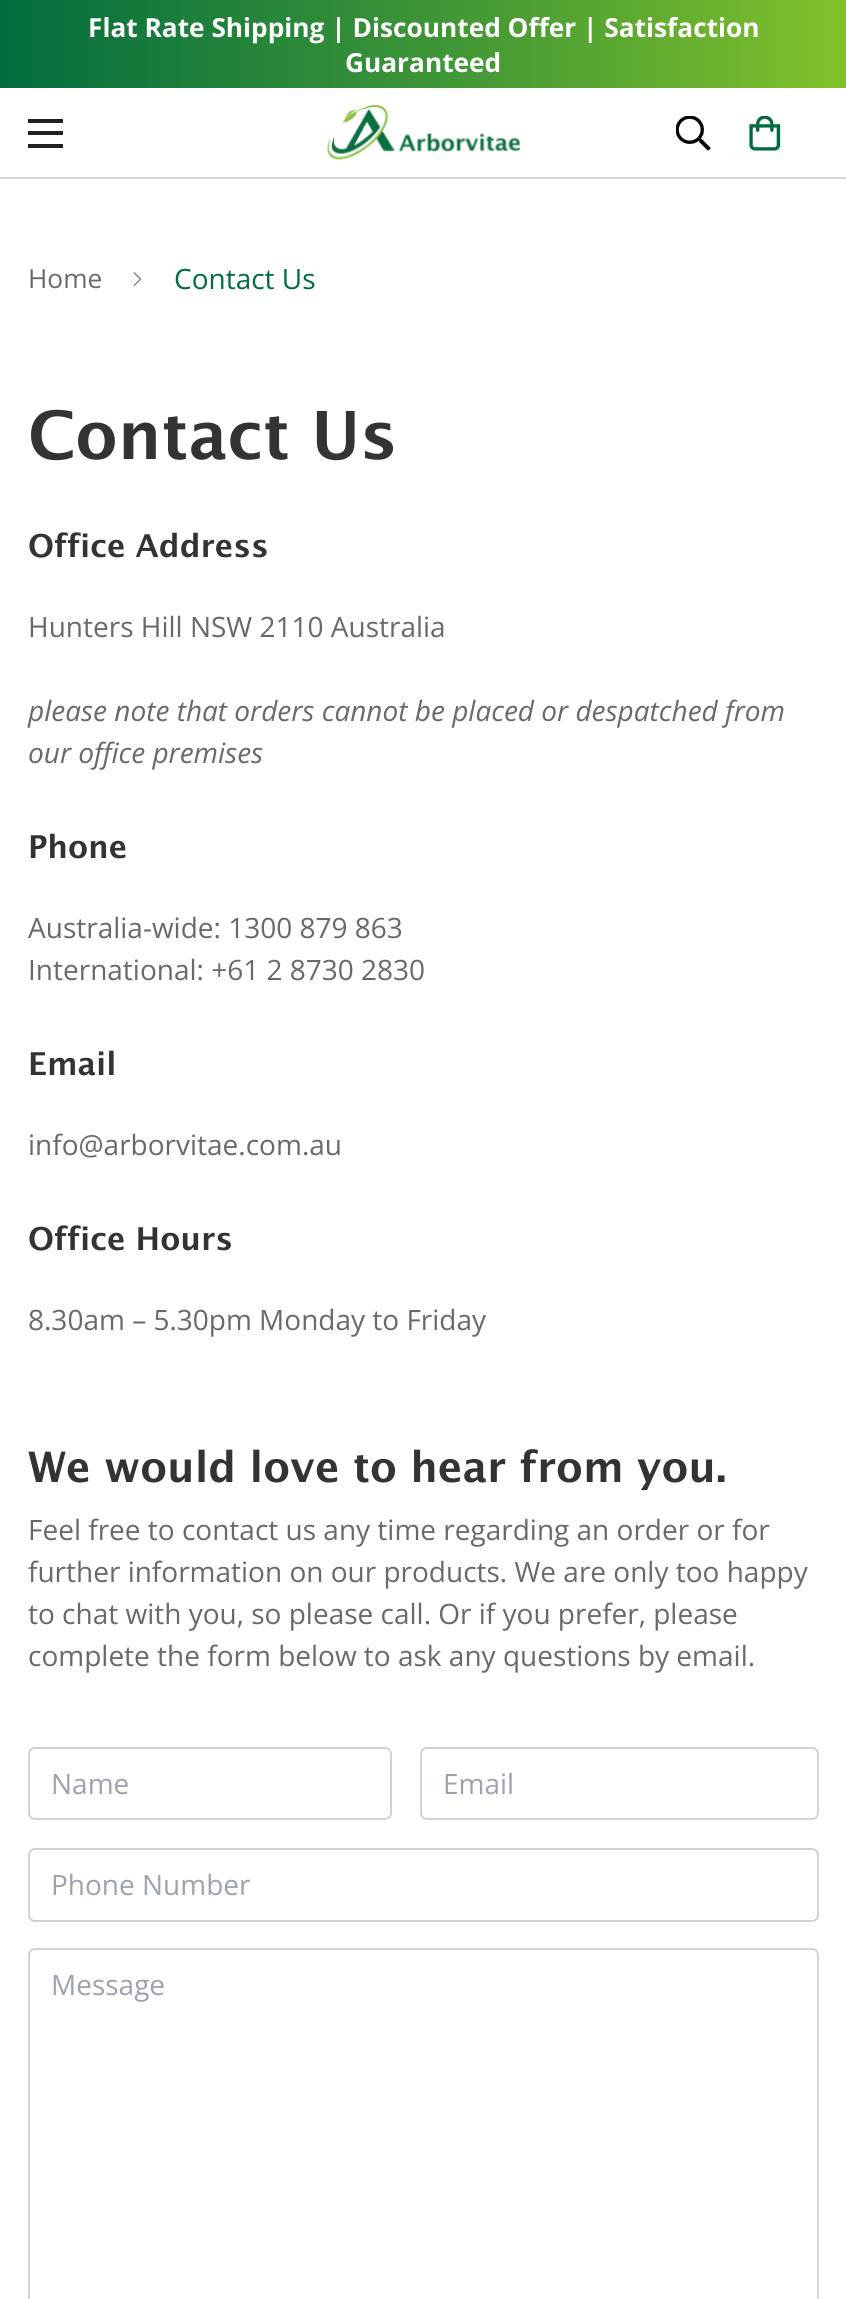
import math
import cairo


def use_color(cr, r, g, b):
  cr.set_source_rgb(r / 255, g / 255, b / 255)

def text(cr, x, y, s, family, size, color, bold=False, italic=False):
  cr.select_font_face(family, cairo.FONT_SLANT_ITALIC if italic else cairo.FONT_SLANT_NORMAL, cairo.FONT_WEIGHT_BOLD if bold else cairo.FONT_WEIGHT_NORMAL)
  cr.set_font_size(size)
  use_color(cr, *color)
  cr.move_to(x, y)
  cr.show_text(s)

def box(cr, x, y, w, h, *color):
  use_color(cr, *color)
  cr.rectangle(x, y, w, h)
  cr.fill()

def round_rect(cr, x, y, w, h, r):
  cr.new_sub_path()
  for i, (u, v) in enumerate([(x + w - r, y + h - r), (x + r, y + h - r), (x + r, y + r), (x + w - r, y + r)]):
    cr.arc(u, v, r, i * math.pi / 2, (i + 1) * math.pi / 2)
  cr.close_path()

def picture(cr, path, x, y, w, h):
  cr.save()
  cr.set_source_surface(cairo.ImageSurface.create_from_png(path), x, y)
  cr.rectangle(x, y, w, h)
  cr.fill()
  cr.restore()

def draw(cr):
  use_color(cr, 255, 255, 255)
  cr.paint()
  gradient = cairo.LinearGradient(0, 44, 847, 44)
  gradient.add_color_stop_rgba(0, 0.008, 0.427, 0.247, 1)
  gradient.add_color_stop_rgba(0.5, 0.235, 0.58, 0.212, 1)
  gradient.add_color_stop_rgba(1, 0.506, 0.757, 0.169, 1)
  cr.set_source(gradient)
  cr.rectangle(0, 0, 846, 88)
  cr.fill()
  box(cr, 0, 177, 846, 2, 214, 214, 214)
  box(cr, 28, 131, 35, 4, 34, 34, 34)
  box(cr, 28, 119, 35, 4, 34, 34, 34)
  box(cr, 28, 144, 35, 4, 34, 34, 34)
  picture(cr, "img_01.png", 327, 105, 193, 55)
  picture(cr, "img_02.png", 676, 116, 35, 35)
  picture(cr, "img_03.png", 749, 116, 32, 35)
  picture(cr, "img_04.png", 133, 272, 9, 14)
  round_rect(cr, 29, 1748, 362, 71, 6)
  use_color(cr, 210, 210, 210)
  cr.stroke()
  round_rect(cr, 421, 1748, 397, 71, 6)
  cr.stroke()
  round_rect(cr, 29, 1849, 789, 72, 6)
  cr.stroke()
  round_rect(cr, 29, 1949, 789, 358, 6)
  cr.stroke()
  text(cr, 88, 37, "Flat Rate Shipping | Discounted Offer | Satisfaction", "Open Sans", 26.25, (255, 255, 255), bold=True)
  text(cr, 345, 72, "Guaranteed", "Open Sans", 26.25, (255, 255, 255), bold=True)
  text(cr, 28, 288, "Home", "Open Sans", 26.25, (105, 105, 105))
  text(cr, 174, 289, "Contact Us", "Open Sans", 28, (1, 109, 63))
  text(cr, 28, 459, "Contact Us", "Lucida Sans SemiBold", 66.5, (51, 51, 51))
  text(cr, 28, 557, "Office Address", "Lucida Sans SemiBold", 31.5, (51, 51, 51))
  text(cr, 28, 637, "Hunters Hill NSW 2110 Australia", "Open Sans", 28, (105, 105, 105))
  text(cr, 28, 721, "please note that orders cannot be placed or despatched from", "Open Sans", 28, (105, 105, 105), italic=True)
  text(cr, 28, 763, "our office premises", "Open Sans", 28, (105, 105, 105), italic=True)
  text(cr, 28, 858, "Phone", "Lucida Sans SemiBold", 31.5, (51, 51, 51))
  text(cr, 28, 938, "Australia-wide: 1300 879 863", "Open Sans", 28, (105, 105, 105))
  text(cr, 28, 980, "International: +61 2 8730 2830", "Open Sans", 28, (105, 105, 105))
  text(cr, 28, 1075, "Email", "Lucida Sans SemiBold", 31.5, (51, 51, 51))
  text(cr, 28, 1155, "info@arborvitae.com.au", "Open Sans", 28, (105, 105, 105))
  text(cr, 28, 1250, "Office Hours", "Lucida Sans SemiBold", 31.5, (51, 51, 51))
  text(cr, 28, 1330, "8.30am – 5.30pm Monday to Friday", "Open Sans", 28, (105, 105, 105))
  text(cr, 28, 1482, "We would love to hear from you.", "Lucida Sans SemiBold", 42, (51, 51, 51))
  text(cr, 28, 1540, "Feel free to contact us any time regarding an order or for", "Open Sans", 28, (105, 105, 105))
  text(cr, 28, 1582, "further information on our products. We are only too happy", "Open Sans", 28, (105, 105, 105))
  text(cr, 28, 1624, "to chat with you, so please call. Or if you prefer, please", "Open Sans", 28, (105, 105, 105))
  text(cr, 28, 1666, "complete the form below to ask any questions by email.", "Open Sans", 28, (105, 105, 105))
  text(cr, 51, 1794, "Name", "Open Sans", 28, (156, 163, 175))
  text(cr, 443, 1794, "Email", "Open Sans", 28, (156, 163, 175))
  text(cr, 51, 1895, "Phone Number", "Open Sans", 28, (156, 163, 175))
  text(cr, 51, 1995, "Message", "Open Sans", 28, (156, 163, 175))


surface = cairo.ImageSurface(cairo.FORMAT_RGB24, 846, 2299)
cr = cairo.Context(surface)
options = cairo.FontOptions()
options.set_hint_metrics(cairo.HINT_METRICS_OFF)
options.set_hint_style(cairo.HINT_STYLE_NONE)
cr.set_font_options(options)
cr.set_miter_limit(4)
draw(cr)
surface.write_to_png("out.png")
